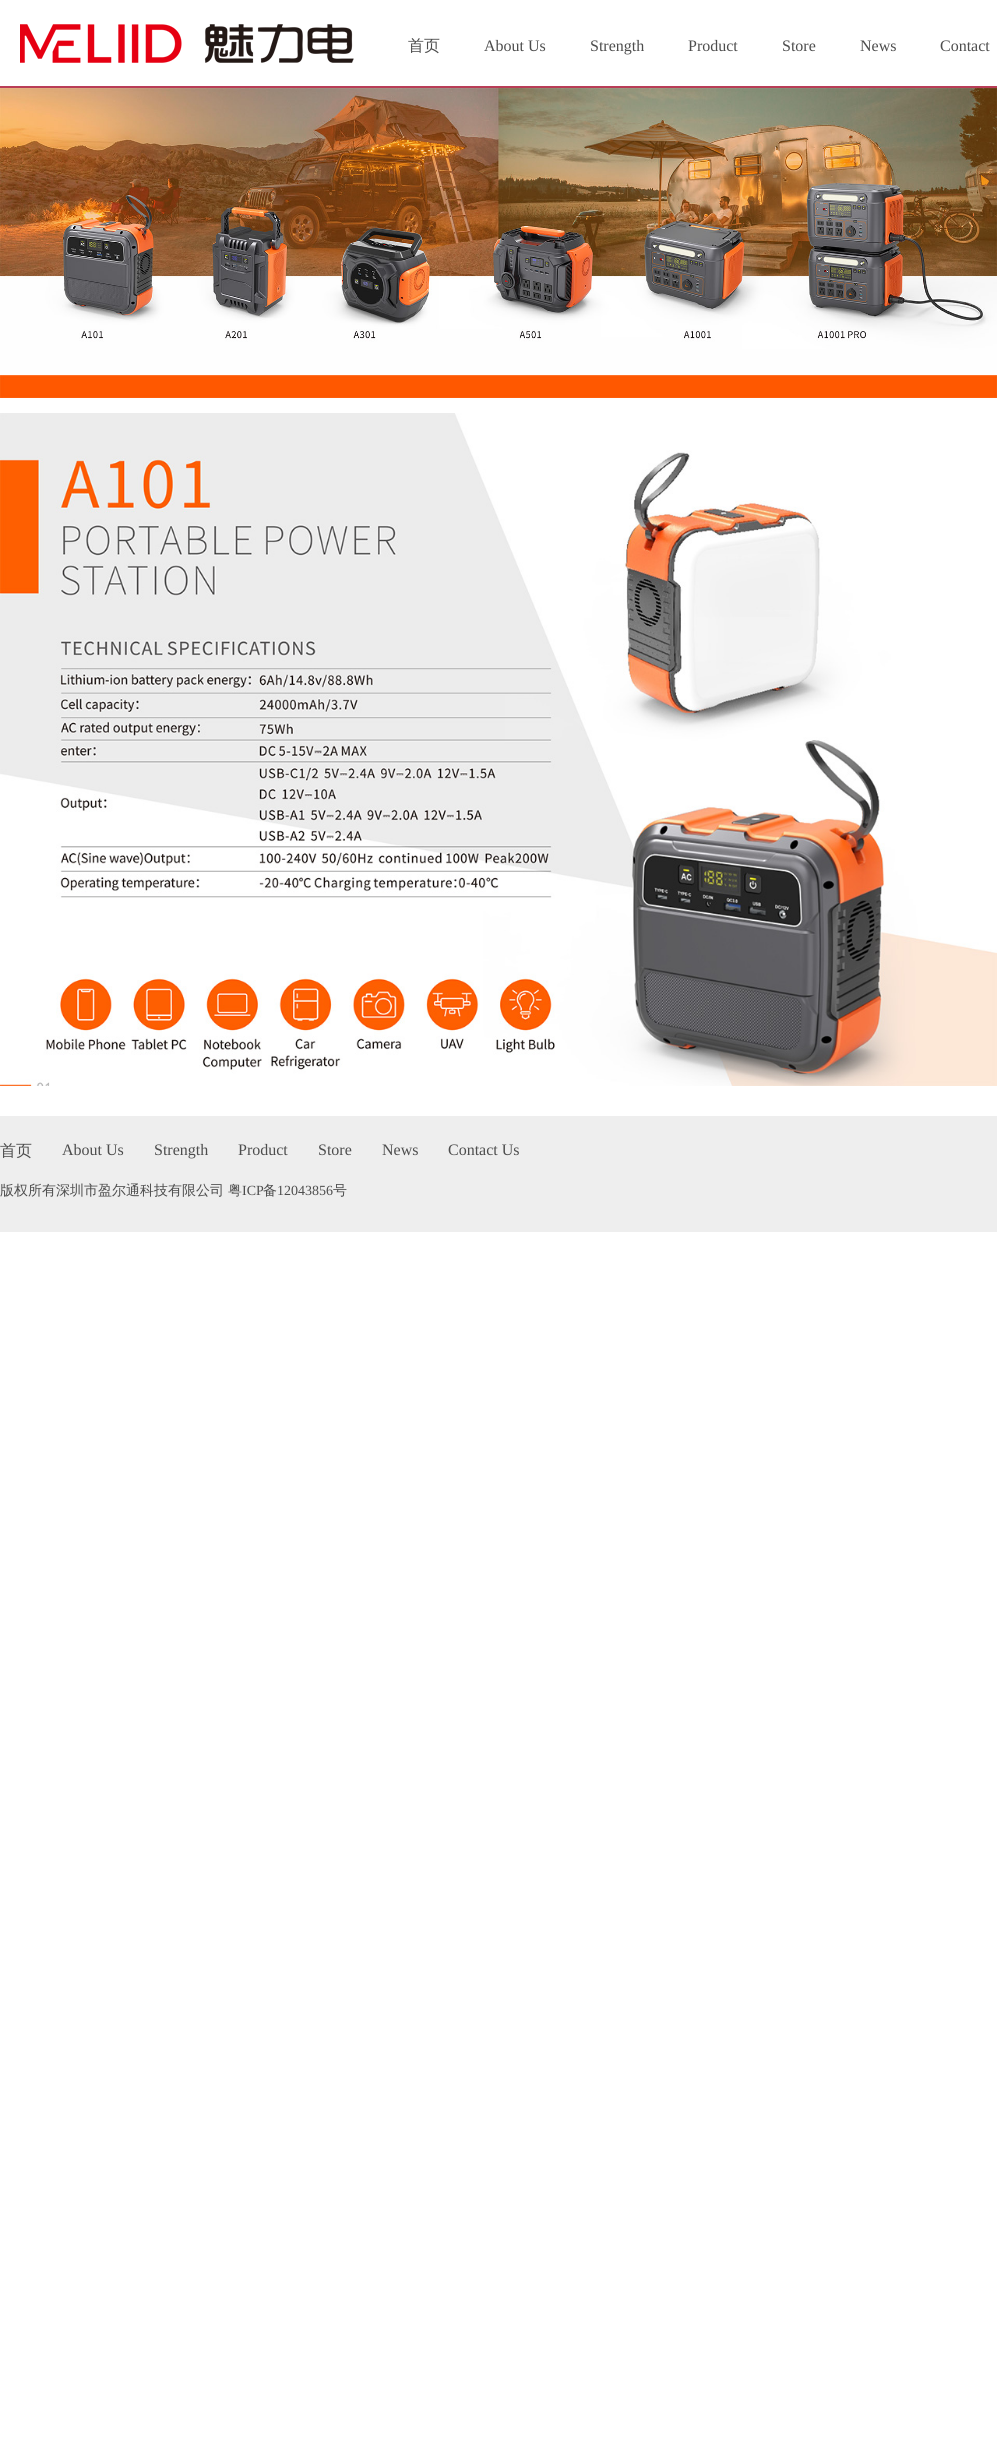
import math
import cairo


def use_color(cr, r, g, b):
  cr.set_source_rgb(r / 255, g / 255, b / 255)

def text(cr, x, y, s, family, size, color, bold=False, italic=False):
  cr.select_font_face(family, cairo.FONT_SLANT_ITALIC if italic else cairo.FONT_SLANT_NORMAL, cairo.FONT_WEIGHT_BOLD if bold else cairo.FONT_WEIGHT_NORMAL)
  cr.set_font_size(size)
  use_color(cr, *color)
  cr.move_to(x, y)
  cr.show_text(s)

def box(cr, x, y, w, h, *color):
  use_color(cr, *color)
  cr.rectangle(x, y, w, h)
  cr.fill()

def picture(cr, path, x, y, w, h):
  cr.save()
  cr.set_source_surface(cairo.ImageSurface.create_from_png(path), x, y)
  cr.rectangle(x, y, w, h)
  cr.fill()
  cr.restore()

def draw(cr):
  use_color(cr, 255, 255, 255)
  cr.paint()
  box(cr, 0, 86, 997, 2, 185, 61, 87)
  picture(cr, "img_01.png", 20, 24, 334, 39)
  picture(cr, "img_02.png", 0, 88, 997, 310)
  picture(cr, "img_03.png", 0, 413, 997, 673)
  box(cr, 0, 1116, 997, 116, 238, 238, 238)
  text(cr, 408, 51, "首页", "WenQuanYi Zen Hei Medium", 16, (77, 77, 77))
  text(cr, 484, 51, "About Us", "Liberation Serif", 16, (77, 77, 77))
  text(cr, 590, 51, "Strength", "Liberation Serif", 16, (77, 77, 77))
  text(cr, 688, 51, "Product", "Liberation Serif", 16, (77, 77, 77))
  text(cr, 782, 51, "Store", "Liberation Serif", 16, (77, 77, 77))
  text(cr, 860, 51, "News", "Liberation Serif", 16, (77, 77, 77))
  text(cr, 940, 51, "Contact", "Liberation Serif", 16, (77, 77, 77))
  text(cr, 0, 1156, "首页", "WenQuanYi Zen Hei Medium", 16, (77, 77, 77))
  text(cr, 62, 1155, "About Us", "Liberation Serif", 16, (77, 77, 77))
  text(cr, 154, 1155, "Strength", "Liberation Serif", 16, (77, 77, 77))
  text(cr, 238, 1155, "Product", "Liberation Serif", 16, (77, 77, 77))
  text(cr, 318, 1155, "Store", "Liberation Serif", 16, (77, 77, 77))
  text(cr, 382, 1155, "News", "Liberation Serif", 16, (77, 77, 77))
  text(cr, 448, 1155, "Contact Us", "Liberation Serif", 16, (77, 77, 77))
  text(cr, 0, 1195, "版权所有深圳市盈尔通科技有限公司", "WenQuanYi Zen Hei Medium", 14, (77, 77, 77))
  text(cr, 228, 1195, "粤", "WenQuanYi Zen Hei Medium", 14, (77, 77, 77))
  text(cr, 242, 1195, "ICP", "Liberation Serif", 14, (77, 77, 77))
  text(cr, 263, 1195, "备", "WenQuanYi Zen Hei Medium", 14, (77, 77, 77))
  text(cr, 277, 1195, "12043856", "Liberation Serif", 14, (77, 77, 77))
  text(cr, 333, 1195, "号", "WenQuanYi Zen Hei Medium", 14, (77, 77, 77))


surface = cairo.ImageSurface(cairo.FORMAT_RGB24, 997, 2457)
cr = cairo.Context(surface)
options = cairo.FontOptions()
options.set_hint_metrics(cairo.HINT_METRICS_OFF)
options.set_hint_style(cairo.HINT_STYLE_NONE)
cr.set_font_options(options)
cr.set_miter_limit(4)
draw(cr)
surface.write_to_png("out.png")
